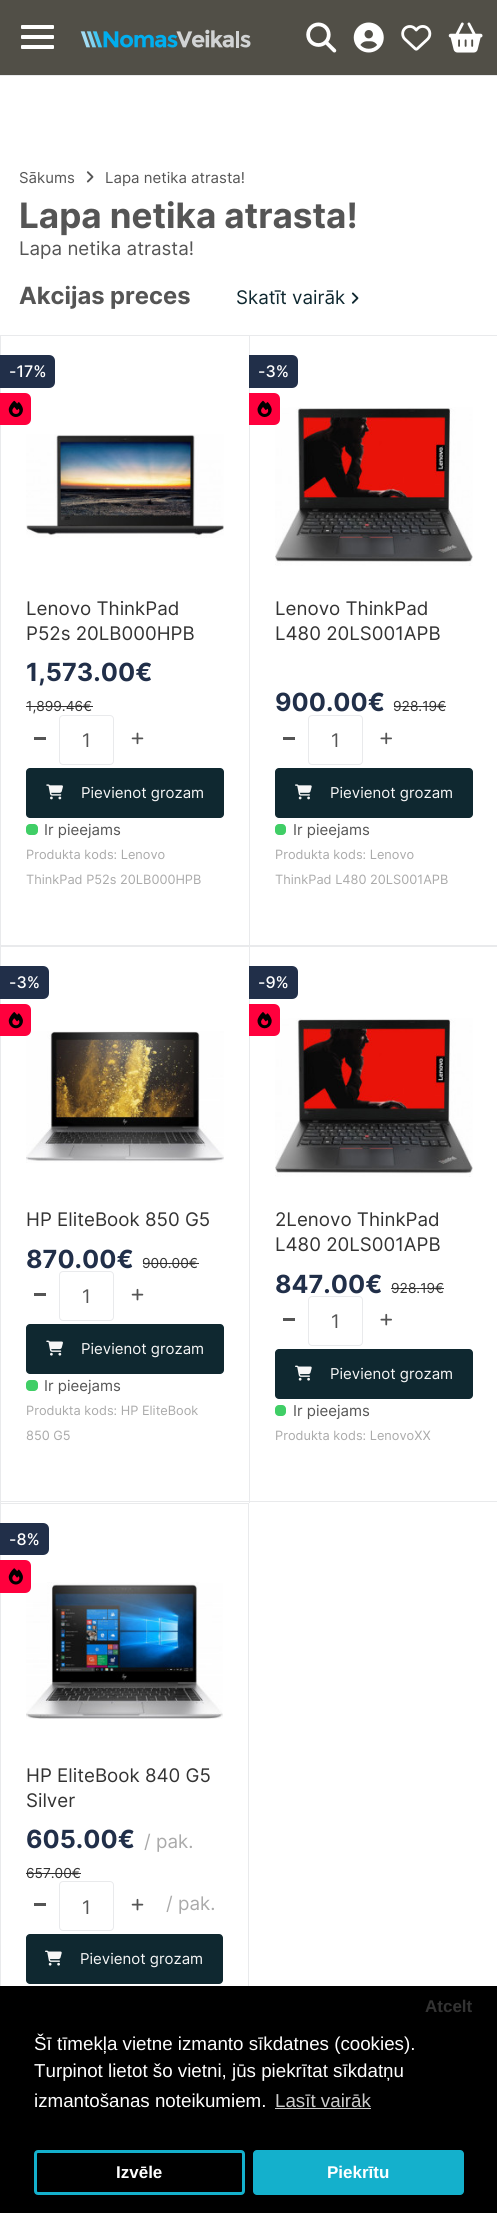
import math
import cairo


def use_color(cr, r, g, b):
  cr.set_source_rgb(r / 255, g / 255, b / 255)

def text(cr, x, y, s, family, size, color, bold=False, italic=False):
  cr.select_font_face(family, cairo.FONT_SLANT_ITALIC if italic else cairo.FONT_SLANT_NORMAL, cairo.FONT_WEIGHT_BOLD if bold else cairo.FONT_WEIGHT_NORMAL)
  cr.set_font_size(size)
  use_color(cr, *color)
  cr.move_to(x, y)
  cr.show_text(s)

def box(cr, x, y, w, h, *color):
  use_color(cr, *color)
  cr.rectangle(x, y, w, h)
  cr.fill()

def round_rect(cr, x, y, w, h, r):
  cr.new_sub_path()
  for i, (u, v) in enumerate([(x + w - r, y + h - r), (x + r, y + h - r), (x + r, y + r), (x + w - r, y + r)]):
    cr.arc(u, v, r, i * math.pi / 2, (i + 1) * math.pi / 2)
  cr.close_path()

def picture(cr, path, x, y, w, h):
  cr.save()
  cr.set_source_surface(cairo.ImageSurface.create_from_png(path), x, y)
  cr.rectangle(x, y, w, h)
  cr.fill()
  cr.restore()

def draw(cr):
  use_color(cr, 255, 255, 255)
  cr.paint()
  box(cr, 0, 0, 497, 75, 81, 79, 71)
  use_color(cr, 255, 255, 255)
  round_rect(cr, 21, 25, 33, 4, 1)
  cr.fill()
  round_rect(cr, 21, 35, 33, 4, 1)
  cr.fill()
  round_rect(cr, 21, 45, 33, 4, 1)
  cr.fill()
  picture(cr, "img_01.png", 80, 29, 171, 19)
  picture(cr, "img_02.png", 306, 22, 31, 31)
  picture(cr, "img_03.png", 353, 22, 31, 31)
  picture(cr, "img_04.png", 401, 25, 31, 26)
  picture(cr, "img_05.png", 448, 22, 35, 31)
  box(cr, 0, 75, 497, 1, 233, 234, 236)
  picture(cr, "img_06.png", 86, 171, 8, 12)
  picture(cr, "img_07.png", 351, 292, 8, 12)
  box(cr, 0, 335, 497, 1, 233, 234, 236)
  box(cr, 0, 945, 497, 1, 233, 234, 236)
  box(cr, 0, 335, 1, 611, 233, 234, 236)
  use_color(cr, 33, 47, 73)
  cr.new_path()
  cr.move_to(0, 355)
  cr.line_to(49, 355)
  cr.curve_to(52.5, 355, 55, 357.5, 55, 361)
  cr.line_to(55, 382)
  cr.curve_to(55, 385.5, 52.5, 388, 49, 388)
  cr.line_to(0, 388)
  cr.close_path()
  cr.fill()
  use_color(cr, 255, 0, 61)
  cr.new_path()
  cr.move_to(0, 393)
  cr.line_to(25, 393)
  cr.curve_to(28.5, 393, 31, 395.5, 31, 399)
  cr.line_to(31, 419)
  cr.curve_to(31, 422.5, 28.5, 425, 25, 425)
  cr.line_to(0, 425)
  cr.close_path()
  cr.fill()
  picture(cr, "img_08.png", 8, 400, 15, 17)
  picture(cr, "img_09.png", 26, 434, 198, 104)
  box(cr, 34, 737, 12, 3, 85, 85, 85)
  round_rect(cr, 59.5, 715.5, 54, 49, 3.5)
  use_color(cr, 233, 234, 236)
  cr.set_line_width(1)
  cr.stroke()
  picture(cr, "img_10.png", 131, 732, 13, 13)
  use_color(cr, 15, 40, 48)
  round_rect(cr, 26, 768, 198, 50, 4)
  cr.fill()
  picture(cr, "img_11.png", 46, 784, 17, 16)
  use_color(cr, 64, 206, 102)
  round_rect(cr, 26, 824, 12, 11, 4)
  cr.fill()
  box(cr, 249, 335, 1, 611, 233, 234, 236)
  use_color(cr, 33, 47, 73)
  cr.new_path()
  cr.move_to(249, 355)
  cr.line_to(292, 355)
  cr.curve_to(295.5, 355, 298, 357.5, 298, 361)
  cr.line_to(298, 382)
  cr.curve_to(298, 385.5, 295.5, 388, 292, 388)
  cr.line_to(249, 388)
  cr.close_path()
  cr.fill()
  picture(cr, "img_13.png", 275, 407, 198, 159)
  use_color(cr, 255, 0, 61)
  cr.new_path()
  cr.move_to(249, 393)
  cr.line_to(274, 393)
  cr.curve_to(277.5, 393, 280, 395.5, 280, 399)
  cr.line_to(280, 419)
  cr.curve_to(280, 422.5, 277.5, 425, 274, 425)
  cr.line_to(249, 425)
  cr.close_path()
  cr.fill()
  picture(cr, "img_12.png", 257, 400, 15, 17)
  box(cr, 283, 737, 12, 3, 85, 85, 85)
  round_rect(cr, 308.5, 715.5, 54, 49, 3.5)
  use_color(cr, 233, 234, 236)
  cr.stroke()
  picture(cr, "img_14.png", 380, 732, 12, 13)
  use_color(cr, 15, 40, 48)
  round_rect(cr, 275, 768, 198, 50, 4)
  cr.fill()
  picture(cr, "img_15.png", 295, 784, 17, 16)
  use_color(cr, 64, 206, 102)
  round_rect(cr, 275, 824, 11, 11, 4)
  cr.fill()
  box(cr, 0, 946, 497, 1, 233, 234, 236)
  box(cr, 0, 1501, 497, 1, 233, 234, 236)
  box(cr, 0, 946, 1, 557, 233, 234, 236)
  use_color(cr, 33, 47, 73)
  cr.new_path()
  cr.move_to(0, 966)
  cr.line_to(43, 966)
  cr.curve_to(46.5, 966, 49, 968.5, 49, 972)
  cr.line_to(49, 993)
  cr.curve_to(49, 996.5, 46.5, 999, 43, 999)
  cr.line_to(0, 999)
  cr.close_path()
  cr.fill()
  picture(cr, "img_17.png", 26, 1031, 198, 132)
  use_color(cr, 255, 0, 61)
  cr.new_path()
  cr.move_to(0, 1004)
  cr.line_to(25, 1004)
  cr.curve_to(28.5, 1004, 31, 1006.5, 31, 1010)
  cr.line_to(31, 1030)
  cr.curve_to(31, 1033.5, 28.5, 1036, 25, 1036)
  cr.line_to(0, 1036)
  cr.close_path()
  cr.fill()
  picture(cr, "img_16.png", 8, 1012, 15, 17)
  box(cr, 34, 1293, 12, 3, 85, 85, 85)
  round_rect(cr, 59.5, 1271.5, 54, 49, 3.5)
  use_color(cr, 233, 234, 236)
  cr.stroke()
  picture(cr, "img_18.png", 131, 1288, 13, 13)
  use_color(cr, 15, 40, 48)
  round_rect(cr, 26, 1324, 198, 50, 4)
  cr.fill()
  picture(cr, "img_19.png", 46, 1340, 17, 16)
  use_color(cr, 64, 206, 102)
  round_rect(cr, 26, 1380, 12, 11, 4)
  cr.fill()
  box(cr, 249, 946, 1, 557, 233, 234, 236)
  use_color(cr, 33, 47, 73)
  cr.new_path()
  cr.move_to(249, 966)
  cr.line_to(292, 966)
  cr.curve_to(295.5, 966, 298, 968.5, 298, 972)
  cr.line_to(298, 993)
  cr.curve_to(298, 996.5, 295.5, 999, 292, 999)
  cr.line_to(249, 999)
  cr.close_path()
  cr.fill()
  picture(cr, "img_21.png", 275, 1018, 198, 159)
  use_color(cr, 255, 0, 61)
  cr.new_path()
  cr.move_to(249, 1004)
  cr.line_to(274, 1004)
  cr.curve_to(277.5, 1004, 280, 1006.5, 280, 1010)
  cr.line_to(280, 1030)
  cr.curve_to(280, 1033.5, 277.5, 1036, 274, 1036)
  cr.line_to(249, 1036)
  cr.close_path()
  cr.fill()
  picture(cr, "img_20.png", 257, 1012, 15, 17)
  box(cr, 283, 1318, 12, 3, 85, 85, 85)
  round_rect(cr, 308.5, 1296.5, 54, 49, 3.5)
  use_color(cr, 233, 234, 236)
  cr.stroke()
  picture(cr, "img_22.png", 380, 1313, 12, 13)
  use_color(cr, 15, 40, 48)
  round_rect(cr, 275, 1349, 198, 50, 4)
  cr.fill()
  picture(cr, "img_23.png", 295, 1365, 17, 16)
  use_color(cr, 64, 206, 102)
  round_rect(cr, 275, 1405, 11, 11, 4)
  cr.fill()
  cr.rectangle(0.5, 1503.5, 248, 610)
  use_color(cr, 233, 234, 236)
  cr.stroke()
  use_color(cr, 33, 47, 73)
  cr.new_path()
  cr.move_to(0, 1523)
  cr.line_to(43, 1523)
  cr.curve_to(46.5, 1523, 49, 1525.5, 49, 1529)
  cr.line_to(49, 1549)
  cr.curve_to(49, 1552.5, 46.5, 1555, 43, 1555)
  cr.line_to(0, 1555)
  cr.close_path()
  cr.fill()
  picture(cr, "img_25.png", 26, 1582, 197, 137)
  use_color(cr, 255, 0, 61)
  cr.new_path()
  cr.move_to(0, 1560)
  cr.line_to(25, 1560)
  cr.curve_to(28.5, 1560, 31, 1562.5, 31, 1566)
  cr.line_to(31, 1587)
  cr.curve_to(31, 1590.5, 28.5, 1593, 25, 1593)
  cr.line_to(0, 1593)
  cr.close_path()
  cr.fill()
  picture(cr, "img_24.png", 8, 1568, 15, 17)
  box(cr, 34, 1903, 12, 3, 85, 85, 85)
  round_rect(cr, 59.5, 1881.5, 54, 49, 3.5)
  use_color(cr, 233, 234, 236)
  cr.stroke()
  picture(cr, "img_18.png", 131, 1898, 13, 13)
  use_color(cr, 15, 40, 48)
  round_rect(cr, 26, 1934, 197, 50, 4)
  cr.fill()
  picture(cr, "img_23.png", 45, 1950, 17, 16)
  box(cr, 0, 1986, 497, 227, 0, 0, 0)
  round_rect(cr, 35.5, 2151.5, 208, 42, 2.5)
  use_color(cr, 20, 176, 204)
  cr.set_line_width(3)
  cr.stroke()
  round_rect(cr, 253, 2150, 211, 45, 4)
  cr.fill()
  box(cr, 275, 2108, 96, 1, 204, 204, 204)
  text(cr, 19, 183, "Sākums", "Inter", 15, (85, 85, 85))
  text(cr, 105, 183, "Lapa netika atrasta!", "Inter", 15, (85, 85, 85))
  text(cr, 19, 228, "Lapa netika atrasta!", "Inter", 35, (85, 85, 85), bold=True)
  text(cr, 19, 255, "Lapa netika atrasta!", "Inter", 18.75, (85, 85, 85))
  text(cr, 19, 304, "Akcijas preces", "Inter", 23.75, (85, 85, 85), bold=True)
  text(cr, 236, 304, "Skatīt vairāk", "Inter", 18.75, (15, 40, 48))
  text(cr, 9, 377, "-17%", "Inter Medium", 16, (255, 255, 255))
  text(cr, 26, 615, "Lenovo ThinkPad", "Inter", 18.75, (51, 51, 51))
  text(cr, 26, 640, "P52s 20LB000HPB", "Inter", 18.75, (51, 51, 51))
  text(cr, 26, 681, "1,573.00€", "Inter", 25, (33, 47, 73), bold=True)
  text(cr, 26, 711, "1,899.46€", "Inter", 13.75, (51, 51, 51))
  box(cr, 26, 706, 67, 1, 46, 46, 46)
  text(cr, 82, 747, "1", "Inter", 18.75, (85, 85, 85))
  text(cr, 81, 798, "Pievienot grozam", "Inter", 15, (247, 247, 247))
  text(cr, 44, 835, "Ir pieejams", "Inter", 15, (85, 85, 85))
  text(cr, 26, 859, "Produkta kods: Lenovo", "Inter", 12.8, (170, 170, 170))
  text(cr, 26, 884, "ThinkPad P52s 20LB000HPB", "Inter", 12.8, (170, 170, 170))
  text(cr, 258, 377, "-3%", "Inter Medium", 16, (255, 255, 255))
  text(cr, 275, 615, "Lenovo ThinkPad", "Inter", 18.75, (51, 51, 51))
  text(cr, 275, 640, "L480 20LS001APB", "Inter", 18.75, (51, 51, 51))
  text(cr, 275, 711, "900.00€", "Inter", 25, (33, 47, 73), bold=True)
  text(cr, 393, 711, "928.19€", "Inter", 13.75, (51, 51, 51))
  box(cr, 394, 706, 52, 1, 46, 46, 46)
  text(cr, 331, 747, "1", "Inter", 18.75, (85, 85, 85))
  text(cr, 330, 798, "Pievienot grozam", "Inter", 15, (247, 247, 247))
  text(cr, 293, 835, "Ir pieejams", "Inter", 15, (85, 85, 85))
  text(cr, 275, 859, "Produkta kods: Lenovo", "Inter", 12.8, (170, 170, 170))
  text(cr, 275, 884, "ThinkPad L480 20LS001APB", "Inter", 12.8, (170, 170, 170))
  text(cr, 9, 988, "-3%", "Inter Medium", 16, (255, 255, 255))
  text(cr, 26, 1226, "HP EliteBook 850 G5", "Inter", 18.75, (51, 51, 51))
  text(cr, 26, 1268, "870.00€", "Inter", 25, (33, 47, 73), bold=True)
  text(cr, 142, 1268, "900.00€", "Inter", 13.75, (51, 51, 51))
  box(cr, 143, 1263, 56, 1, 46, 46, 46)
  text(cr, 82, 1303, "1", "Inter", 18.75, (85, 85, 85))
  text(cr, 81, 1354, "Pievienot grozam", "Inter", 15, (247, 247, 247))
  text(cr, 44, 1391, "Ir pieejams", "Inter", 15, (85, 85, 85))
  text(cr, 26, 1415, "Produkta kods: HP EliteBook", "Inter", 12.8, (170, 170, 170))
  text(cr, 26, 1440, "850 G5", "Inter", 12.8, (170, 170, 170))
  text(cr, 258, 988, "-9%", "Inter Medium", 16, (255, 255, 255))
  text(cr, 275, 1226, "2Lenovo ThinkPad", "Inter", 18.75, (51, 51, 51))
  text(cr, 275, 1251, "L480 20LS001APB", "Inter", 18.75, (51, 51, 51))
  text(cr, 275, 1293, "847.00€", "Inter", 25, (33, 47, 73), bold=True)
  text(cr, 391, 1293, "928.19€", "Inter", 13.75, (51, 51, 51))
  box(cr, 391, 1288, 53, 1, 46, 46, 46)
  text(cr, 331, 1328, "1", "Inter", 18.75, (85, 85, 85))
  text(cr, 330, 1379, "Pievienot grozam", "Inter", 15, (247, 247, 247))
  text(cr, 293, 1416, "Ir pieejams", "Inter", 15, (85, 85, 85))
  text(cr, 275, 1440, "Produkta kods: LenovoXX", "Inter", 12.8, (170, 170, 170))
  text(cr, 9, 1545, "-8%", "Inter Medium", 16, (255, 255, 255))
  text(cr, 26, 1782, "HP EliteBook 840 G5", "Inter", 18.75, (51, 51, 51))
  text(cr, 26, 1807, "Silver", "Inter", 18.75, (51, 51, 51))
  text(cr, 26, 1848, "605.00€", "Inter", 25, (33, 47, 73), bold=True)
  text(cr, 144, 1848, "/ pak.", "Inter", 18.75, (170, 170, 170))
  text(cr, 26, 1878, "657.00€", "Inter", 13.75, (51, 51, 51))
  box(cr, 26, 1873, 55, 1, 46, 46, 46)
  text(cr, 82, 1914, "1", "Inter", 18.75, (85, 85, 85))
  text(cr, 166, 1910, "/ pak.", "Inter", 18.75, (170, 170, 170))
  text(cr, 80, 1964, "Pievienot grozam", "Inter", 15, (247, 247, 247))
  text(cr, 425, 2012, "Atcelt", "Liberation Sans", 17, (51, 51, 51), bold=True)
  text(cr, 116, 2178, "Izvēle", "Liberation Sans", 17, (255, 255, 255), bold=True)
  text(cr, 327, 2178, "Piekrītu", "Liberation Sans", 17, (255, 255, 255), bold=True)
  text(cr, 34, 2050, "Šī tīmekļa vietne izmanto sīkdatnes (cookies).", "Liberation Sans", 18.75, (255, 255, 255))
  text(cr, 34, 2077, "Turpinot lietot šo vietni, jūs piekrītat sīkdatņu", "Liberation Sans", 18.75, (255, 255, 255))
  text(cr, 34, 2107, "izmantošanas noteikumiem.", "Liberation Sans", 18.75, (255, 255, 255))
  text(cr, 275, 2107, "Lasīt vairāk", "Liberation Sans", 18.75, (204, 204, 204))


surface = cairo.ImageSurface(cairo.FORMAT_RGB24, 497, 2213)
cr = cairo.Context(surface)
options = cairo.FontOptions()
options.set_hint_metrics(cairo.HINT_METRICS_OFF)
options.set_hint_style(cairo.HINT_STYLE_NONE)
cr.set_font_options(options)
cr.set_miter_limit(4)
draw(cr)
surface.write_to_png("out.png")
